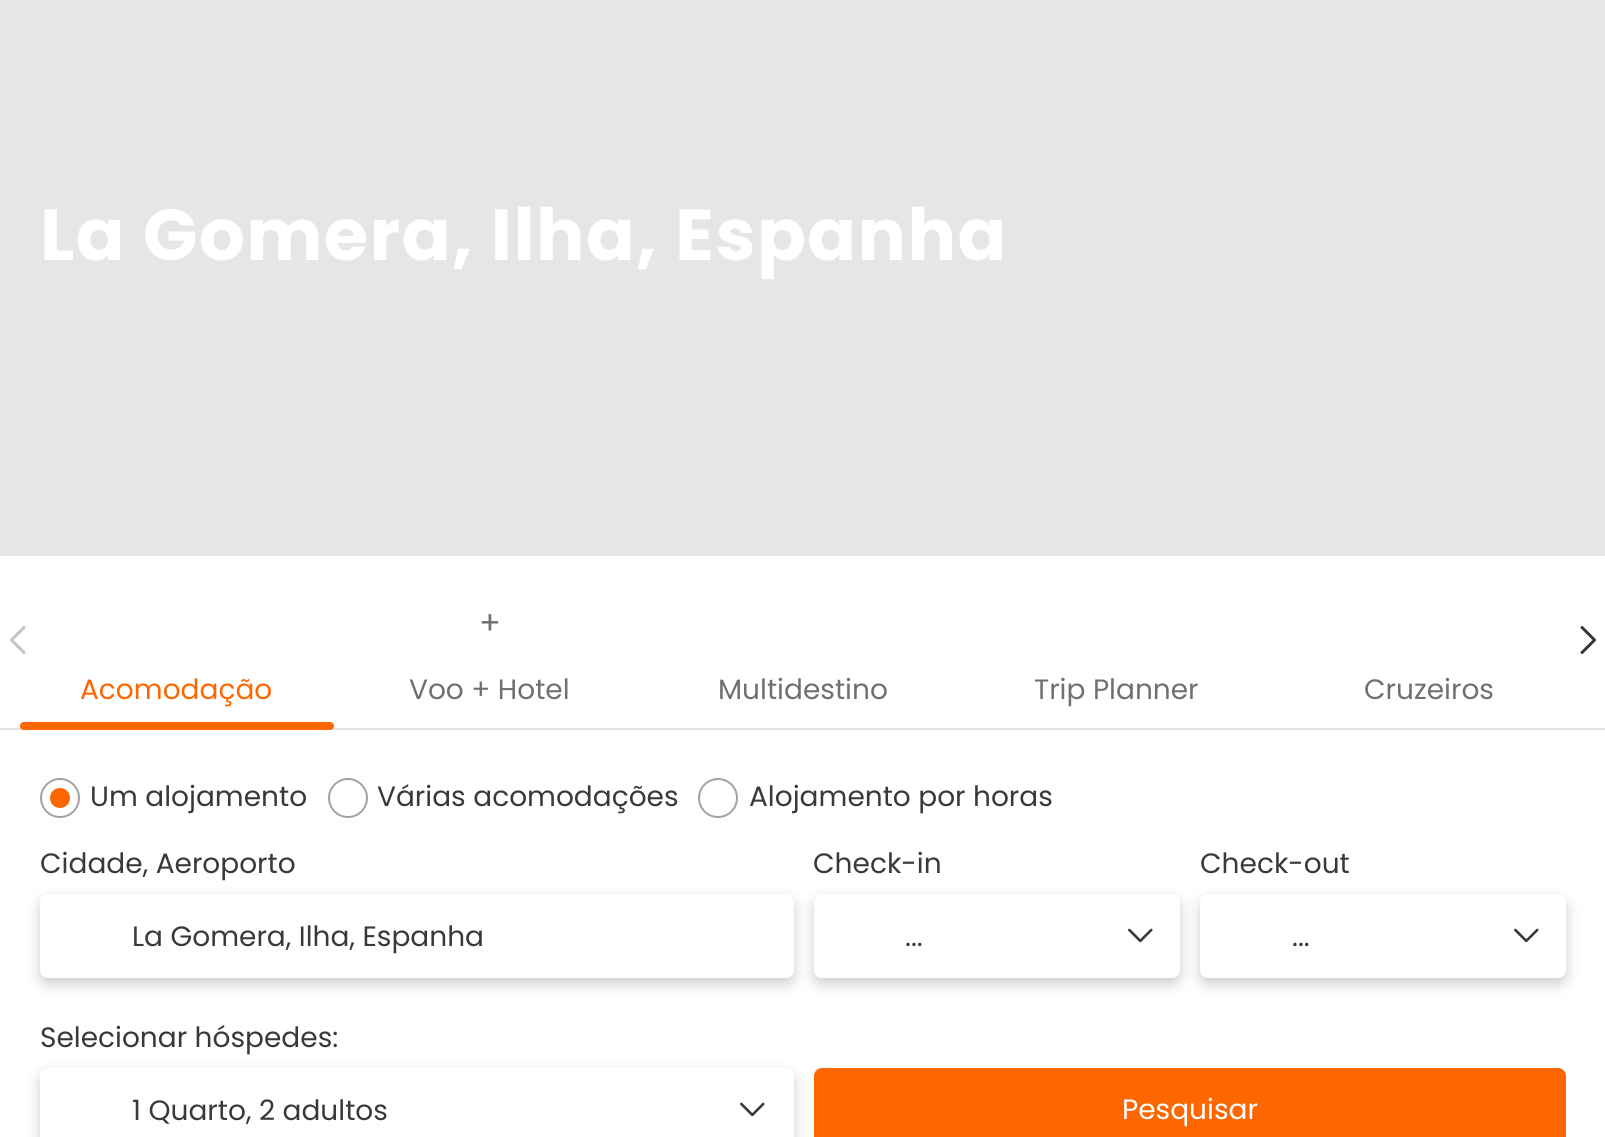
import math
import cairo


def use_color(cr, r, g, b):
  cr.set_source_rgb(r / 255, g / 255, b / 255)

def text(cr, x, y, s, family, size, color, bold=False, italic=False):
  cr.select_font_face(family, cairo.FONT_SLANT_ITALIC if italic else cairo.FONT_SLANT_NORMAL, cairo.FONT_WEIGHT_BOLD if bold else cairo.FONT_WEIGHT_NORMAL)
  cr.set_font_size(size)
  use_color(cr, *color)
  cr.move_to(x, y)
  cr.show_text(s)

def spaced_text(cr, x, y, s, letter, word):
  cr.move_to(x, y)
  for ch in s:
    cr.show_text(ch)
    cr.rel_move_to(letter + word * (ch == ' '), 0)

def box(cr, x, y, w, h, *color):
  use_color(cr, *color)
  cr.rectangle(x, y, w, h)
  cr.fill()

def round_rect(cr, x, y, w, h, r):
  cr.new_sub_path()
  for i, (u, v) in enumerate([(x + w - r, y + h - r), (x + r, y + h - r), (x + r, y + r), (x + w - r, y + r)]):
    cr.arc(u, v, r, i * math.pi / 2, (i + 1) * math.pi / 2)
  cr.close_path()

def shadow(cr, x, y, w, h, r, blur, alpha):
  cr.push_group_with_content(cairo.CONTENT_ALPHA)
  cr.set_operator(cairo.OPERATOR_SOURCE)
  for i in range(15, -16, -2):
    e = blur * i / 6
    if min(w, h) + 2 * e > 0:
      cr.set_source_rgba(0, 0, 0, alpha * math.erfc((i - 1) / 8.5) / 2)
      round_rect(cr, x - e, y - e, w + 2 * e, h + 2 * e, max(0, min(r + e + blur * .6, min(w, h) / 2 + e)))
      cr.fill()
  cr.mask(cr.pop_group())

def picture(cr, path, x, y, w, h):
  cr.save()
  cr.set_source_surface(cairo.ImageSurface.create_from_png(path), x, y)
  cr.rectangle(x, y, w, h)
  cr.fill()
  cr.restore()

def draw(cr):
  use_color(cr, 255, 255, 255)
  cr.paint()
  box(cr, 0, 0, 1605, 556, 230, 230, 230)
  picture(cr, "img_01.png", 10, 626, 16, 28)
  box(cr, 0, 728, 1605, 2, 227, 227, 227)
  use_color(cr, 254, 102, 0)
  round_rect(cr, 20, 722, 314, 8, 4)
  cr.fill()
  picture(cr, "img_02.png", 1580, 626, 16, 28)
  cr.arc(60, 798, 19, 0, 2 * math.pi)
  use_color(cr, 162, 162, 162)
  cr.stroke()
  use_color(cr, 254, 102, 0)
  cr.arc(60, 798, 13, 0, 2 * math.pi)
  cr.fill_preserve()
  use_color(cr, 255, 255, 255)
  cr.set_line_width(6)
  cr.stroke()
  cr.arc(348, 798, 19, 0, 2 * math.pi)
  use_color(cr, 162, 162, 162)
  cr.set_line_width(2)
  cr.stroke()
  cr.arc(718, 798, 19, 0, 2 * math.pi)
  cr.stroke()
  use_color(cr, 0, 0, 0)
  shadow(cr, 40, 900, 754, 84, 8, 7, 0.2)
  use_color(cr, 255, 255, 255)
  round_rect(cr, 41, 895, 752, 82, 7)
  cr.fill_preserve()
  cr.stroke()
  use_color(cr, 0, 0, 0)
  shadow(cr, 814, 900, 366, 84, 8, 7, 0.2)
  use_color(cr, 255, 255, 255)
  round_rect(cr, 815, 895, 364, 82, 7)
  cr.fill_preserve()
  cr.stroke()
  picture(cr, "img_03.png", 1128, 928, 25, 15)
  use_color(cr, 0, 0, 0)
  shadow(cr, 1200, 900, 366, 84, 8, 7, 0.2)
  use_color(cr, 255, 255, 255)
  round_rect(cr, 1201, 895, 364, 82, 7)
  cr.fill_preserve()
  cr.stroke()
  picture(cr, "img_03.png", 1514, 928, 25, 15)
  use_color(cr, 254, 102, 0)
  round_rect(cr, 814, 1068, 752, 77, 8)
  cr.fill()
  use_color(cr, 0, 0, 0)
  shadow(cr, 40, 1074, 754, 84, 8, 7, 0.2)
  use_color(cr, 255, 255, 255)
  round_rect(cr, 40, 1068, 754, 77, 8)
  cr.fill()
  picture(cr, "img_03.png", 740, 1102, 25, 15)
  cr.select_font_face("Poppins", cairo.FONT_SLANT_NORMAL, cairo.FONT_WEIGHT_BOLD)
  cr.set_font_size(72)
  spaced_text(cr, 40, 260, "La Gomera, Ilha, Espanha", 1.4, 0)
  text(cr, 80, 699, "Acomodação", "Poppins", 28, (254, 102, 0))
  text(cr, 479, 634, "+", "Poppins", 32, (112, 112, 112))
  text(cr, 409, 699, "Voo + Hotel", "Poppins", 28, (112, 112, 112))
  text(cr, 718, 699, "Multidestino", "Poppins", 28, (112, 112, 112))
  text(cr, 1034, 699, "Trip Planner", "Poppins", 28, (112, 112, 112))
  text(cr, 1364, 699, "Cruzeiros", "Poppins", 28, (112, 112, 112))
  text(cr, 90, 806, "Um alojamento", "Poppins", 28, (57, 57, 57))
  text(cr, 377, 806, "Várias acomodações", "Poppins", 28, (57, 57, 57))
  text(cr, 749, 806, "Alojamento por horas", "Poppins", 28, (57, 57, 57))
  text(cr, 40, 873, "Cidade, Aeroporto", "Poppins", 28, (57, 57, 57))
  text(cr, 132, 946, "La Gomera, Ilha, Espanha", "Poppins", 28, (57, 57, 57))
  text(cr, 813, 873, "Check-in", "Poppins", 28, (57, 57, 57))
  text(cr, 905, 946, "...", "Poppins", 28, (57, 57, 57))
  text(cr, 1200, 873, "Check-out", "Poppins", 28, (57, 57, 57))
  text(cr, 1292, 946, "...", "Poppins", 28, (57, 57, 57))
  text(cr, 40, 1047, "Selecionar hóspedes:", "Poppins", 28, (57, 57, 57))
  text(cr, 132, 1120, "1 Quarto, 2 adultos", "Poppins", 28, (57, 57, 57))
  text(cr, 1122, 1119, "Pesquisar", "Poppins", 28, (255, 255, 255))


surface = cairo.ImageSurface(cairo.FORMAT_RGB24, 1605, 1137)
cr = cairo.Context(surface)
options = cairo.FontOptions()
options.set_hint_metrics(cairo.HINT_METRICS_OFF)
options.set_hint_style(cairo.HINT_STYLE_NONE)
cr.set_font_options(options)
cr.set_miter_limit(4)
draw(cr)
surface.write_to_png("out.png")
